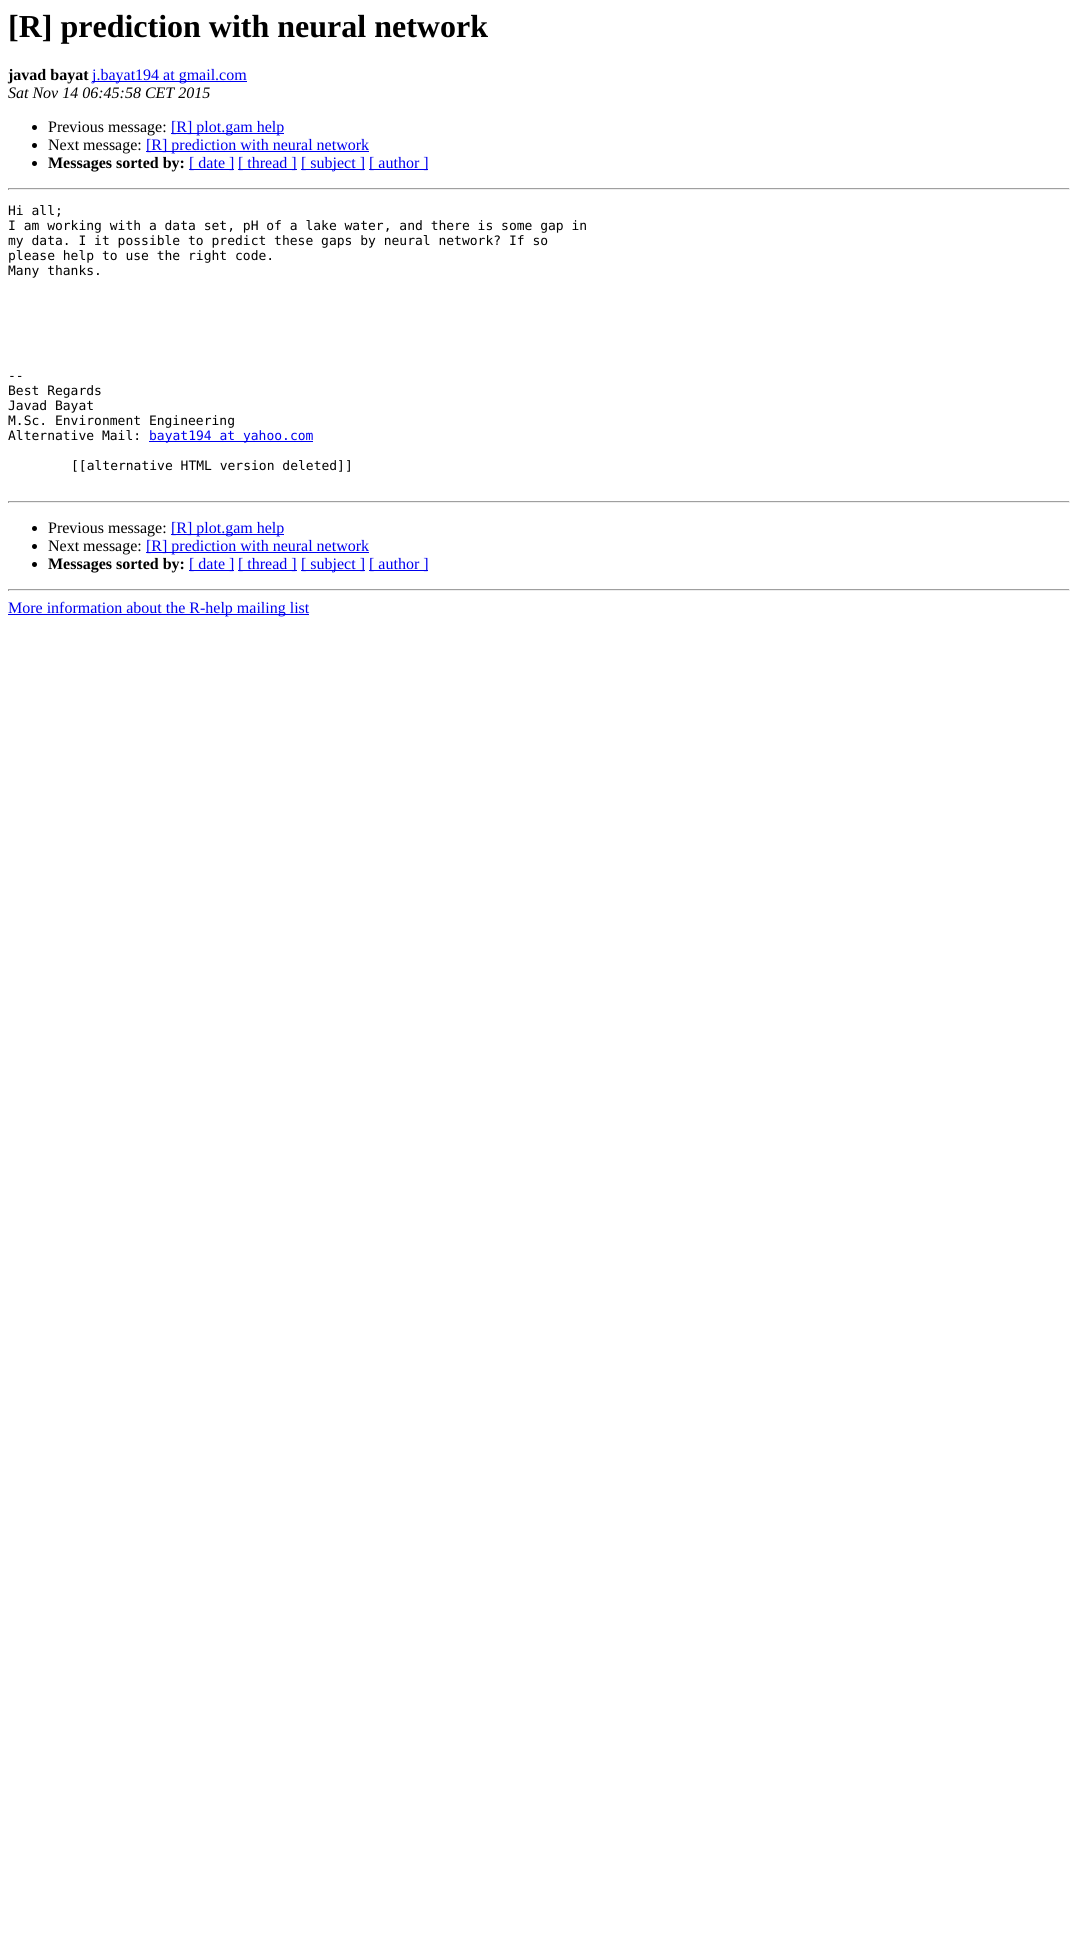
import math
import cairo


def use_color(cr, r, g, b):
  cr.set_source_rgb(r / 255, g / 255, b / 255)

def text(cr, x, y, s, family, size, color, bold=False, italic=False):
  cr.select_font_face(family, cairo.FONT_SLANT_ITALIC if italic else cairo.FONT_SLANT_NORMAL, cairo.FONT_WEIGHT_BOLD if bold else cairo.FONT_WEIGHT_NORMAL)
  cr.set_font_size(size)
  use_color(cr, *color)
  cr.move_to(x, y)
  cr.show_text(s)

def box(cr, x, y, w, h, *color):
  use_color(cr, *color)
  cr.rectangle(x, y, w, h)
  cr.fill()

def draw(cr):
  use_color(cr, 255, 255, 255)
  cr.paint()
  box(cr, 92, 81, 155, 1, 0, 0, 238)
  use_color(cr, 0, 0, 0)
  cr.arc(34.5, 127.5, 2.5, 0, 2 * math.pi)
  cr.fill()
  box(cr, 171, 133, 113, 1, 0, 0, 238)
  use_color(cr, 0, 0, 0)
  cr.arc(34.5, 145.5, 2.5, 0, 2 * math.pi)
  cr.fill()
  box(cr, 146, 151, 223, 1, 0, 0, 238)
  use_color(cr, 0, 0, 0)
  cr.arc(34.5, 163.5, 2.5, 0, 2 * math.pi)
  cr.fill()
  box(cr, 189, 169, 45, 1, 0, 0, 238)
  box(cr, 238, 169, 59, 1, 0, 0, 238)
  box(cr, 301, 169, 64, 1, 0, 0, 238)
  box(cr, 369, 169, 59, 1, 0, 0, 238)
  box(cr, 8, 188, 1062, 1, 159, 159, 159)
  box(cr, 1069, 188, 1, 2, 238, 238, 238)
  box(cr, 8, 189, 1062, 1, 238, 238, 238)
  box(cr, 8, 188, 1, 2, 159, 159, 159)
  box(cr, 149, 441, 164, 1, 0, 0, 238)
  box(cr, 8, 501, 1062, 1, 159, 159, 159)
  box(cr, 1069, 501, 1, 2, 238, 238, 238)
  box(cr, 8, 502, 1062, 1, 238, 238, 238)
  box(cr, 8, 501, 1, 2, 159, 159, 159)
  use_color(cr, 0, 0, 0)
  cr.arc(34.5, 528.5, 2.5, 0, 2 * math.pi)
  cr.fill()
  box(cr, 171, 534, 113, 1, 0, 0, 238)
  use_color(cr, 0, 0, 0)
  cr.arc(34.5, 546.5, 2.5, 0, 2 * math.pi)
  cr.fill()
  box(cr, 146, 552, 223, 1, 0, 0, 238)
  use_color(cr, 0, 0, 0)
  cr.arc(34.5, 564.5, 2.5, 0, 2 * math.pi)
  cr.fill()
  box(cr, 189, 570, 45, 1, 0, 0, 238)
  box(cr, 238, 570, 59, 1, 0, 0, 238)
  box(cr, 301, 570, 64, 1, 0, 0, 238)
  box(cr, 369, 570, 59, 1, 0, 0, 238)
  box(cr, 8, 589, 1062, 1, 159, 159, 159)
  box(cr, 1069, 589, 1, 2, 238, 238, 238)
  box(cr, 8, 590, 1062, 1, 238, 238, 238)
  box(cr, 8, 589, 1, 2, 159, 159, 159)
  box(cr, 8, 614, 301, 1, 0, 0, 238)
  text(cr, 8, 37, "[R] prediction with neural network", "Liberation Serif", 32, (0, 0, 0), bold=True)
  text(cr, 8, 80, "javad bayat", "Liberation Serif", 16, (0, 0, 0), bold=True)
  text(cr, 92, 80, "j.bayat194 at gmail.com", "Liberation Serif", 16, (0, 0, 238))
  text(cr, 8, 98, "Sat Nov 14 06:45:58 CET 2015", "Liberation Serif", 16, (0, 0, 0), italic=True)
  text(cr, 48, 132, "Previous message:", "Liberation Serif", 16, (0, 0, 0))
  text(cr, 171, 132, "[R] plot.gam help", "Liberation Serif", 16, (0, 0, 238))
  text(cr, 48, 150, "Next message:", "Liberation Serif", 16, (0, 0, 0))
  text(cr, 146, 150, "[R] prediction with neural network", "Liberation Serif", 16, (0, 0, 238))
  text(cr, 48, 168, "Messages sorted by:", "Liberation Serif", 16, (0, 0, 0), bold=True)
  text(cr, 189, 168, "[ date ]", "Liberation Serif", 16, (0, 0, 238))
  text(cr, 238, 168, "[ thread ]", "Liberation Serif", 16, (0, 0, 238))
  text(cr, 301, 168, "[ subject ]", "Liberation Serif", 16, (0, 0, 238))
  text(cr, 369, 168, "[ author ]", "Liberation Serif", 16, (0, 0, 238))
  text(cr, 8, 215, "Hi all;", "DejaVu Sans Mono", 13, (0, 0, 0))
  text(cr, 8, 230, "I am working with a data set, pH of a lake water, and there is some gap in", "DejaVu Sans Mono", 13, (0, 0, 0))
  text(cr, 8, 245, "my data. I it possible to predict these gaps by neural network? If so", "DejaVu Sans Mono", 13, (0, 0, 0))
  text(cr, 8, 260, "please help to use the right code.", "DejaVu Sans Mono", 13, (0, 0, 0))
  text(cr, 8, 275, "Many thanks.", "DejaVu Sans Mono", 13, (0, 0, 0))
  text(cr, 8, 380, "--", "DejaVu Sans Mono", 13, (0, 0, 0))
  text(cr, 8, 395, "Best Regards", "DejaVu Sans Mono", 13, (0, 0, 0))
  text(cr, 8, 410, "Javad Bayat", "DejaVu Sans Mono", 13, (0, 0, 0))
  text(cr, 8, 425, "M.Sc. Environment Engineering", "DejaVu Sans Mono", 13, (0, 0, 0))
  text(cr, 8, 440, "Alternative Mail:", "DejaVu Sans Mono", 13, (0, 0, 0))
  text(cr, 149, 440, "bayat194 at yahoo.com", "DejaVu Sans Mono", 13, (0, 0, 238))
  text(cr, 71, 470, "[[alternative HTML version deleted]]", "DejaVu Sans Mono", 13, (0, 0, 0))
  text(cr, 48, 533, "Previous message:", "Liberation Serif", 16, (0, 0, 0))
  text(cr, 171, 533, "[R] plot.gam help", "Liberation Serif", 16, (0, 0, 238))
  text(cr, 48, 551, "Next message:", "Liberation Serif", 16, (0, 0, 0))
  text(cr, 146, 551, "[R] prediction with neural network", "Liberation Serif", 16, (0, 0, 238))
  text(cr, 48, 569, "Messages sorted by:", "Liberation Serif", 16, (0, 0, 0), bold=True)
  text(cr, 189, 569, "[ date ]", "Liberation Serif", 16, (0, 0, 238))
  text(cr, 238, 569, "[ thread ]", "Liberation Serif", 16, (0, 0, 238))
  text(cr, 301, 569, "[ subject ]", "Liberation Serif", 16, (0, 0, 238))
  text(cr, 369, 569, "[ author ]", "Liberation Serif", 16, (0, 0, 238))
  text(cr, 8, 613, "More information about the R-help mailing list", "Liberation Serif", 16, (0, 0, 238))


surface = cairo.ImageSurface(cairo.FORMAT_RGB24, 1078, 1936)
cr = cairo.Context(surface)
options = cairo.FontOptions()
options.set_hint_metrics(cairo.HINT_METRICS_OFF)
options.set_hint_style(cairo.HINT_STYLE_NONE)
cr.set_font_options(options)
cr.set_miter_limit(4)
draw(cr)
surface.write_to_png("out.png")
